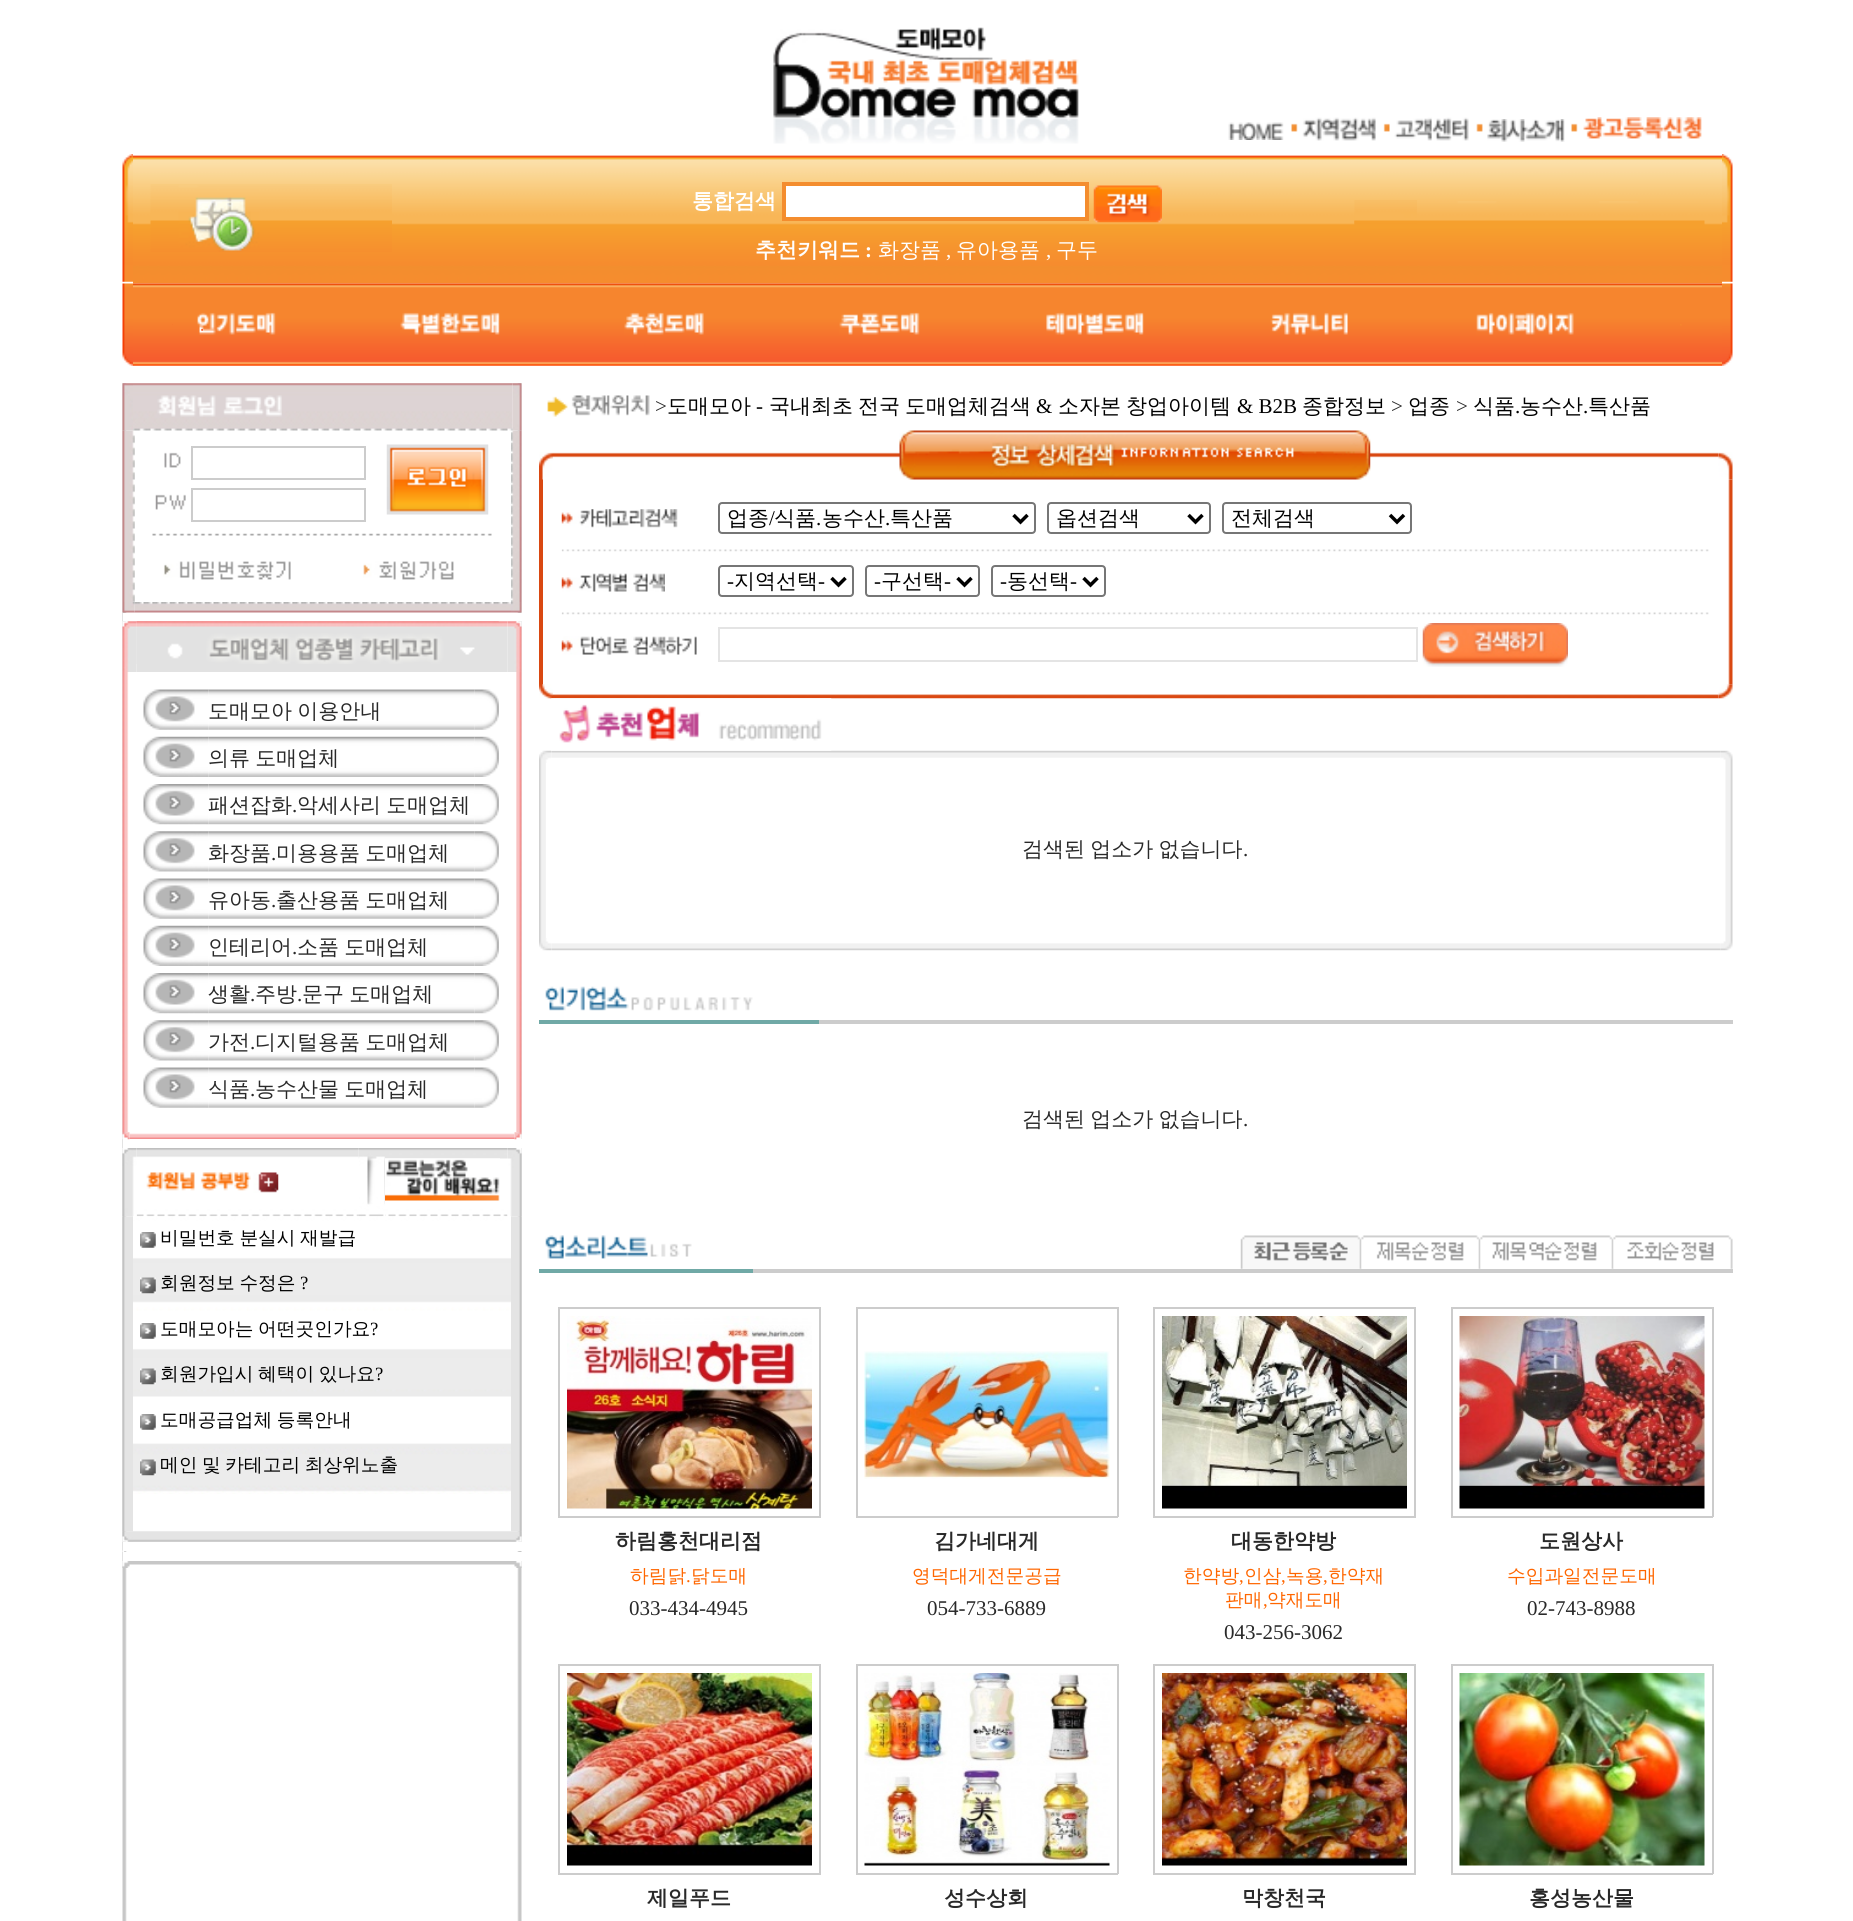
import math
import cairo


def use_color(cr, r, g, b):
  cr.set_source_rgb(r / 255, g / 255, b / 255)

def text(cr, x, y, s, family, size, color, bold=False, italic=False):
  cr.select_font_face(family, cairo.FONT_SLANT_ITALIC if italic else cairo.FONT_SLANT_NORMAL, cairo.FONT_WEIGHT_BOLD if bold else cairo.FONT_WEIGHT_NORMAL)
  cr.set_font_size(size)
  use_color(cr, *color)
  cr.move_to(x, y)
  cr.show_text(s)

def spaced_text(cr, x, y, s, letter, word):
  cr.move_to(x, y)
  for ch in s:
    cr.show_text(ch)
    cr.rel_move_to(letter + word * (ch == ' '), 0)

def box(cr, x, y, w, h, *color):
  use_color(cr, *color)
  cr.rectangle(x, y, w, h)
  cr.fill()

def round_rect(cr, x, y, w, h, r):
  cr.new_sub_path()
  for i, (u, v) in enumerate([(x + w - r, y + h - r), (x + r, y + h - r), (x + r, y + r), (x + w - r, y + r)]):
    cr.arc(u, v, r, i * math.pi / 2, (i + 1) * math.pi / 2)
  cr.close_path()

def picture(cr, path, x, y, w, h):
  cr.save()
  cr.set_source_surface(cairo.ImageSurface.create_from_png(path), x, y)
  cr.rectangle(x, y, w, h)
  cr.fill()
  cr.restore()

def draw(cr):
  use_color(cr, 255, 255, 255)
  cr.paint()
  picture(cr, "img_01.png", 773, 27, 306, 117)
  picture(cr, "img_02.png", 1228, 122, 56, 18)
  picture(cr, "img_03.png", 1291, 123, 7, 9)
  picture(cr, "img_04.png", 1302, 117, 74, 24)
  picture(cr, "img_05.png", 1383, 123, 7, 9)
  picture(cr, "img_06.png", 1394, 117, 75, 24)
  picture(cr, "img_07.png", 1476, 123, 7, 9)
  picture(cr, "img_08.png", 1487, 119, 78, 23)
  picture(cr, "img_09.png", 1564, 119, 14, 22)
  picture(cr, "img_10.png", 1583, 117, 119, 22)
  picture(cr, "img_11.png", 122, 154, 11, 128)
  picture(cr, "img_12.png", 133, 155, 1589, 129)
  picture(cr, "img_13.png", 150, 184, 242, 68)
  use_color(cr, 255, 255, 255)
  cr.rectangle(784, 184, 303, 35)
  cr.fill_preserve()
  use_color(cr, 244, 141, 46)
  cr.set_line_width(4)
  cr.stroke()
  picture(cr, "img_14.png", 1093, 185, 69, 38)
  picture(cr, "img_15.png", 1354, 201, 351, 24)
  picture(cr, "img_16.png", 1354, 200, 63, 24)
  picture(cr, "img_17.png", 1722, 154, 11, 128)
  picture(cr, "img_18.png", 122, 283, 11, 83)
  picture(cr, "img_19.png", 133, 283, 1589, 83)
  box(cr, 172, 324, 1, 1, 246, 121, 46)
  picture(cr, "img_20.png", 197, 312, 79, 23)
  picture(cr, "img_21.png", 400, 312, 100, 23)
  picture(cr, "img_22.png", 624, 312, 80, 23)
  picture(cr, "img_23.png", 839, 312, 81, 23)
  picture(cr, "img_24.png", 1046, 312, 98, 23)
  picture(cr, "img_25.png", 1270, 312, 78, 23)
  picture(cr, "img_26.png", 1476, 312, 98, 23)
  picture(cr, "img_27.png", 1680, 324, 2, 2)
  picture(cr, "img_28.png", 1722, 283, 11, 83)
  picture(cr, "img_29.png", 201, 329, 2, 2)
  picture(cr, "img_30.png", 122, 383, 400, 1538)
  picture(cr, "img_32.png", 133, 383, 380, 48)
  picture(cr, "img_35.png", 122, 430, 13, 172)
  picture(cr, "img_31.png", 122, 383, 11, 48)
  picture(cr, "img_33.png", 157, 395, 125, 22)
  picture(cr, "img_42.png", 511, 430, 11, 172)
  picture(cr, "img_34.png", 512, 383, 10, 48)
  picture(cr, "img_36.png", 164, 452, 17, 16)
  cr.rectangle(192, 447, 173, 32)
  use_color(cr, 204, 204, 204)
  cr.set_line_width(2)
  cr.stroke()
  picture(cr, "img_37.png", 386, 444, 103, 71)
  picture(cr, "img_38.png", 155, 494, 31, 16)
  cr.rectangle(192, 489, 173, 32)
  cr.stroke()
  picture(cr, "img_39.png", 152, 533, 340, 3)
  picture(cr, "img_40.png", 163, 561, 128, 19)
  picture(cr, "img_41.png", 363, 561, 91, 19)
  picture(cr, "img_44.png", 134, 602, 377, 11)
  picture(cr, "img_43.png", 122, 602, 13, 11)
  picture(cr, "img_45.png", 511, 602, 11, 11)
  box(cr, 123, 613, 399, 8, 255, 255, 255)
  picture(cr, "img_47.png", 136, 621, 372, 51)
  picture(cr, "img_46.png", 122, 621, 15, 51)
  picture(cr, "img_48.png", 136, 621, 363, 43)
  picture(cr, "img_49.png", 507, 621, 15, 51)
  picture(cr, "img_50.png", 122, 672, 7, 461)
  picture(cr, "img_51.png", 143, 689, 66, 41)
  picture(cr, "img_52.png", 208, 689, 267, 41)
  picture(cr, "img_53.png", 474, 689, 25, 41)
  picture(cr, "img_54.png", 143, 736, 66, 41)
  picture(cr, "img_55.png", 208, 736, 267, 41)
  picture(cr, "img_56.png", 474, 736, 25, 41)
  picture(cr, "img_57.png", 143, 784, 66, 41)
  picture(cr, "img_58.png", 208, 784, 267, 41)
  picture(cr, "img_59.png", 474, 784, 25, 41)
  picture(cr, "img_60.png", 143, 831, 66, 41)
  picture(cr, "img_61.png", 208, 831, 267, 41)
  picture(cr, "img_62.png", 474, 831, 25, 41)
  picture(cr, "img_51.png", 143, 878, 66, 41)
  picture(cr, "img_52.png", 208, 878, 267, 41)
  picture(cr, "img_53.png", 474, 878, 25, 41)
  picture(cr, "img_54.png", 143, 925, 66, 41)
  picture(cr, "img_63.png", 208, 925, 267, 41)
  picture(cr, "img_56.png", 474, 925, 25, 41)
  picture(cr, "img_57.png", 143, 973, 66, 41)
  picture(cr, "img_58.png", 208, 973, 267, 41)
  picture(cr, "img_59.png", 474, 973, 25, 41)
  picture(cr, "img_60.png", 143, 1020, 66, 41)
  picture(cr, "img_61.png", 208, 1020, 267, 41)
  picture(cr, "img_62.png", 474, 1020, 25, 41)
  picture(cr, "img_51.png", 143, 1067, 66, 41)
  picture(cr, "img_52.png", 208, 1067, 267, 41)
  picture(cr, "img_53.png", 474, 1067, 25, 41)
  picture(cr, "img_64.png", 516, 672, 6, 461)
  picture(cr, "img_66.png", 129, 1133, 386, 6)
  box(cr, 123, 1139, 399, 9, 255, 255, 255)
  picture(cr, "img_65.png", 122, 1132, 8, 8)
  picture(cr, "img_67.png", 514, 1132, 8, 8)
  picture(cr, "img_69.png", 136, 1148, 223, 69)
  picture(cr, "img_68.png", 122, 1148, 15, 68)
  picture(cr, "img_70.png", 146, 1172, 133, 21)
  picture(cr, "img_71.png", 358, 1148, 27, 69)
  picture(cr, "img_72.png", 385, 1148, 123, 69)
  picture(cr, "img_73.png", 385, 1158, 115, 43)
  picture(cr, "img_74.png", 507, 1148, 15, 68)
  picture(cr, "img_75.png", 122, 1216, 11, 316)
  picture(cr, "img_76.png", 133, 1216, 378, 278)
  picture(cr, "img_77.png", 140, 1232, 16, 16)
  picture(cr, "img_78.png", 140, 1277, 16, 17)
  picture(cr, "img_77.png", 140, 1323, 16, 16)
  picture(cr, "img_78.png", 140, 1368, 16, 17)
  picture(cr, "img_77.png", 140, 1414, 16, 16)
  picture(cr, "img_78.png", 140, 1459, 16, 17)
  picture(cr, "img_79.png", 511, 1216, 11, 316)
  picture(cr, "img_80.png", 122, 1531, 11, 11)
  picture(cr, "img_81.png", 133, 1531, 378, 11)
  picture(cr, "img_82.png", 511, 1531, 11, 11)
  box(cr, 123, 1542, 399, 9, 255, 255, 255)
  picture(cr, "img_83.png", 122, 1550, 3, 2)
  box(cr, 123, 1552, 399, 9, 255, 255, 255)
  picture(cr, "img_84.png", 122, 1561, 400, 7)
  picture(cr, "img_85.png", 547, 395, 103, 22)
  box(cr, 539, 479, 4, 206, 217, 72, 17)
  picture(cr, "img_86.png", 539, 452, 14, 28)
  picture(cr, "img_87.png", 553, 452, 1166, 6)
  picture(cr, "img_88.png", 899, 430, 472, 50)
  picture(cr, "img_95.png", 1728, 479, 5, 206)
  picture(cr, "img_89.png", 1718, 452, 15, 28)
  picture(cr, "img_90.png", 561, 509, 117, 19)
  round_rect(cr, 719, 503, 316, 30, 3)
  use_color(cr, 118, 118, 118)
  cr.stroke()
  cr.new_path()
  cr.move_to(1013.5, 515)
  cr.line_to(1020.5, 522)
  cr.line_to(1027.5, 515)
  use_color(cr, 0, 0, 0)
  cr.set_line_width(3.5)
  cr.stroke()
  round_rect(cr, 1048, 503, 162, 30, 3)
  use_color(cr, 118, 118, 118)
  cr.set_line_width(2)
  cr.stroke()
  cr.new_path()
  cr.move_to(1188.5, 515)
  cr.line_to(1195.5, 522)
  cr.line_to(1202.5, 515)
  use_color(cr, 0, 0, 0)
  cr.set_line_width(3.5)
  cr.stroke()
  round_rect(cr, 1223, 503, 188, 30, 3)
  use_color(cr, 118, 118, 118)
  cr.set_line_width(2)
  cr.stroke()
  cr.new_path()
  cr.move_to(1390, 515)
  cr.line_to(1397, 522)
  cr.line_to(1404, 515)
  use_color(cr, 0, 0, 0)
  cr.set_line_width(3.5)
  cr.stroke()
  picture(cr, "img_91.png", 561, 549, 1148, 3)
  picture(cr, "img_92.png", 561, 573, 104, 19)
  round_rect(cr, 719, 566, 134, 30, 3)
  use_color(cr, 118, 118, 118)
  cr.set_line_width(2)
  cr.stroke()
  cr.new_path()
  cr.move_to(831.5, 578)
  cr.line_to(838.5, 585)
  cr.line_to(845.5, 578)
  use_color(cr, 0, 0, 0)
  cr.set_line_width(3.5)
  cr.stroke()
  round_rect(cr, 866, 566, 113, 30, 3)
  use_color(cr, 118, 118, 118)
  cr.set_line_width(2)
  cr.stroke()
  cr.new_path()
  cr.move_to(957.5, 578)
  cr.line_to(964.5, 585)
  cr.line_to(971.5, 578)
  use_color(cr, 0, 0, 0)
  cr.set_line_width(3.5)
  cr.stroke()
  round_rect(cr, 992, 566, 113, 30, 3)
  use_color(cr, 118, 118, 118)
  cr.set_line_width(2)
  cr.stroke()
  cr.new_path()
  cr.move_to(1083.5, 578)
  cr.line_to(1090.5, 585)
  cr.line_to(1097.5, 578)
  use_color(cr, 0, 0, 0)
  cr.set_line_width(3.5)
  cr.stroke()
  picture(cr, "img_91.png", 561, 612, 1148, 3)
  picture(cr, "img_93.png", 561, 636, 136, 19)
  cr.rectangle(719, 628, 698, 33)
  use_color(cr, 228, 228, 228)
  cr.set_line_width(2)
  cr.stroke()
  picture(cr, "img_94.png", 1422, 623, 146, 44)
  picture(cr, "img_96.png", 539, 684, 14, 15)
  picture(cr, "img_97.png", 553, 694, 1166, 5)
  picture(cr, "img_98.png", 1718, 684, 15, 15)
  picture(cr, "img_101.png", 551, 750, 1170, 8)
  picture(cr, "img_99.png", 551, 698, 281, 53)
  picture(cr, "img_100.png", 539, 750, 12, 13)
  picture(cr, "img_102.png", 1720, 750, 13, 13)
  picture(cr, "img_103.png", 539, 763, 7, 175)
  picture(cr, "img_104.png", 1725, 763, 8, 175)
  picture(cr, "img_105.png", 539, 938, 12, 13)
  picture(cr, "img_106.png", 551, 943, 1170, 8)
  picture(cr, "img_107.png", 1720, 938, 13, 13)
  picture(cr, "img_108.png", 545, 986, 208, 25)
  box(cr, 539, 1020, 280, 4, 112, 169, 166)
  box(cr, 819, 1020, 914, 4, 204, 204, 204)
  picture(cr, "img_109.png", 545, 1235, 147, 24)
  picture(cr, "img_110.png", 1240, 1235, 122, 34)
  picture(cr, "img_111.png", 1361, 1235, 120, 34)
  picture(cr, "img_112.png", 1480, 1235, 134, 34)
  picture(cr, "img_113.png", 1613, 1235, 120, 34)
  box(cr, 539, 1269, 214, 4, 112, 169, 166)
  box(cr, 753, 1269, 980, 4, 204, 204, 204)
  box(cr, 558, 1307, 263, 2, 204, 204, 204)
  box(cr, 819, 1307, 2, 210, 204, 204, 204)
  box(cr, 558, 1516, 263, 2, 204, 204, 204)
  box(cr, 558, 1307, 2, 210, 204, 204, 204)
  picture(cr, "img_114.png", 567, 1316, 245, 193)
  box(cr, 856, 1307, 262, 2, 204, 204, 204)
  box(cr, 1117, 1307, 2, 210, 204, 204, 204)
  box(cr, 856, 1516, 262, 2, 204, 204, 204)
  box(cr, 856, 1307, 2, 210, 204, 204, 204)
  picture(cr, "img_115.png", 864, 1351, 246, 128)
  box(cr, 1153, 1307, 263, 2, 204, 204, 204)
  box(cr, 1414, 1307, 2, 210, 204, 204, 204)
  box(cr, 1153, 1516, 263, 2, 204, 204, 204)
  box(cr, 1153, 1307, 2, 210, 204, 204, 204)
  picture(cr, "img_116.png", 1162, 1316, 245, 193)
  box(cr, 1451, 1307, 262, 2, 204, 204, 204)
  box(cr, 1712, 1307, 2, 210, 204, 204, 204)
  box(cr, 1451, 1516, 262, 2, 204, 204, 204)
  box(cr, 1451, 1307, 2, 210, 204, 204, 204)
  picture(cr, "img_117.png", 1459, 1316, 246, 193)
  box(cr, 558, 1664, 263, 2, 204, 204, 204)
  box(cr, 819, 1664, 2, 210, 204, 204, 204)
  box(cr, 558, 1873, 263, 2, 204, 204, 204)
  box(cr, 558, 1664, 2, 210, 204, 204, 204)
  picture(cr, "img_118.png", 567, 1673, 245, 193)
  box(cr, 856, 1664, 262, 2, 204, 204, 204)
  box(cr, 1117, 1664, 2, 210, 204, 204, 204)
  box(cr, 856, 1873, 262, 2, 204, 204, 204)
  box(cr, 856, 1664, 2, 210, 204, 204, 204)
  picture(cr, "img_119.png", 864, 1673, 246, 193)
  box(cr, 1153, 1664, 263, 2, 204, 204, 204)
  box(cr, 1414, 1664, 2, 210, 204, 204, 204)
  box(cr, 1153, 1873, 263, 2, 204, 204, 204)
  box(cr, 1153, 1664, 2, 210, 204, 204, 204)
  picture(cr, "img_120.png", 1162, 1673, 245, 193)
  box(cr, 1451, 1664, 262, 2, 204, 204, 204)
  box(cr, 1712, 1664, 2, 210, 204, 204, 204)
  box(cr, 1451, 1873, 262, 2, 204, 204, 204)
  box(cr, 1451, 1664, 2, 210, 204, 204, 204)
  picture(cr, "img_121.png", 1459, 1673, 246, 193)
  text(cr, 692, 208, "통합검색", "WenQuanYi Zen Hei", 21, (255, 255, 255), bold=True)
  text(cr, 755, 257, "추천키워드", "WenQuanYi Zen Hei", 21, (255, 255, 255), bold=True)
  text(cr, 865, 257, ":", "Liberation Serif", 21, (255, 255, 255), bold=True)
  text(cr, 878, 257, "화장품", "WenQuanYi Zen Hei Medium", 21, (255, 255, 255))
  text(cr, 946, 257, ",", "Liberation Serif", 21, (255, 255, 255))
  text(cr, 956, 257, "유아용품", "WenQuanYi Zen Hei Medium", 21, (255, 255, 255))
  text(cr, 1046, 257, ",", "Liberation Serif", 21, (255, 255, 255))
  text(cr, 1056, 257, "구두", "WenQuanYi Zen Hei Medium", 21, (255, 255, 255))
  use_color(cr, 41, 41, 41)
  spaced_text(cr, 208, 718, "도매모아 이용안내", 0, -1)
  spaced_text(cr, 208, 765, "의류 도매업체", 0, -1)
  text(cr, 208, 812, "패션잡화", "WenQuanYi Zen Hei Medium", 21, (41, 41, 41))
  text(cr, 292, 812, ".", "Liberation Serif", 21, (41, 41, 41))
  cr.select_font_face("WenQuanYi Zen Hei Medium")
  spaced_text(cr, 297, 812, "악세사리 도매업체", 0, -1)
  text(cr, 208, 860, "화장품", "WenQuanYi Zen Hei Medium", 21, (41, 41, 41))
  text(cr, 271, 860, ".", "Liberation Serif", 21, (41, 41, 41))
  cr.select_font_face("WenQuanYi Zen Hei Medium")
  spaced_text(cr, 276, 860, "미용용품 도매업체", 0, -1)
  text(cr, 208, 907, "유아동", "WenQuanYi Zen Hei Medium", 21, (41, 41, 41))
  text(cr, 271, 907, ".", "Liberation Serif", 21, (41, 41, 41))
  cr.select_font_face("WenQuanYi Zen Hei Medium")
  spaced_text(cr, 276, 907, "출산용품 도매업체", 0, -1)
  text(cr, 208, 954, "인테리어", "WenQuanYi Zen Hei Medium", 21, (41, 41, 41))
  text(cr, 292, 954, ".", "Liberation Serif", 21, (41, 41, 41))
  cr.select_font_face("WenQuanYi Zen Hei Medium")
  spaced_text(cr, 297, 954, "소품 도매업체", 0, -1)
  text(cr, 208, 1001, "생활", "WenQuanYi Zen Hei Medium", 21, (41, 41, 41))
  text(cr, 250, 1001, ".", "Liberation Serif", 21, (41, 41, 41))
  text(cr, 255, 1001, "주방", "WenQuanYi Zen Hei Medium", 21, (41, 41, 41))
  text(cr, 297, 1001, ".", "Liberation Serif", 21, (41, 41, 41))
  cr.select_font_face("WenQuanYi Zen Hei Medium")
  spaced_text(cr, 302, 1001, "문구 도매업체", 0, -1)
  text(cr, 208, 1049, "가전", "WenQuanYi Zen Hei Medium", 21, (41, 41, 41))
  text(cr, 250, 1049, ".", "Liberation Serif", 21, (41, 41, 41))
  cr.select_font_face("WenQuanYi Zen Hei Medium")
  spaced_text(cr, 255, 1049, "디지털용품 도매업체", 0, -1)
  text(cr, 208, 1096, "식품", "WenQuanYi Zen Hei Medium", 21, (41, 41, 41))
  text(cr, 250, 1096, ".", "Liberation Serif", 21, (41, 41, 41))
  cr.select_font_face("WenQuanYi Zen Hei Medium")
  spaced_text(cr, 255, 1096, "농수산물 도매업체", 0, -1)
  cr.set_font_size(18.7)
  use_color(cr, 0, 0, 0)
  spaced_text(cr, 160, 1244, "비밀번호 분실시 재발급", 0, -1)
  spaced_text(cr, 160, 1289, "회원정보 수정은", 0, -1)
  text(cr, 300, 1289, "?", "Liberation Serif", 18.7, (0, 0, 0))
  cr.select_font_face("WenQuanYi Zen Hei Medium")
  spaced_text(cr, 160, 1335, "도매모아는 어떤곳인가요", 0, -1)
  text(cr, 370, 1335, "?", "Liberation Serif", 18.7, (0, 0, 0))
  cr.select_font_face("WenQuanYi Zen Hei Medium")
  spaced_text(cr, 160, 1380, "회원가입시 혜택이 있나요", 0, -1)
  text(cr, 375, 1380, "?", "Liberation Serif", 18.7, (0, 0, 0))
  cr.select_font_face("WenQuanYi Zen Hei Medium")
  spaced_text(cr, 160, 1426, "도매공급업체 등록안내", 0, -1)
  spaced_text(cr, 160, 1471, "메인 및 카테고리 최상위노출", 0, -1)
  text(cr, 655, 413, ">", "Liberation Serif", 21, (41, 41, 41))
  text(cr, 667, 413, "도매모아", "WenQuanYi Zen Hei Medium", 21, (0, 0, 0))
  text(cr, 756, 413, "-", "Liberation Serif", 21, (0, 0, 0))
  text(cr, 769, 413, "국내최초", "WenQuanYi Zen Hei Medium", 21, (0, 0, 0))
  text(cr, 858, 413, "전국", "WenQuanYi Zen Hei Medium", 21, (0, 0, 0))
  text(cr, 905, 413, "도매업체검색", "WenQuanYi Zen Hei Medium", 21, (0, 0, 0))
  text(cr, 1036, 413, "&", "Liberation Serif", 21, (0, 0, 0))
  text(cr, 1058, 413, "소자본", "WenQuanYi Zen Hei Medium", 21, (0, 0, 0))
  text(cr, 1126, 413, "창업아이템", "WenQuanYi Zen Hei Medium", 21, (0, 0, 0))
  text(cr, 1237, 413, "& B2B", "Liberation Serif", 21, (0, 0, 0))
  text(cr, 1302, 413, "종합정보", "WenQuanYi Zen Hei Medium", 21, (0, 0, 0))
  text(cr, 1391, 413, ">", "Liberation Serif", 21, (41, 41, 41))
  text(cr, 1408, 413, "업종", "WenQuanYi Zen Hei Medium", 21, (0, 0, 0))
  text(cr, 1456, 413, ">", "Liberation Serif", 21, (41, 41, 41))
  text(cr, 1473, 413, "식품", "WenQuanYi Zen Hei Medium", 21, (0, 0, 0))
  text(cr, 1520, 413, "농수산", "WenQuanYi Zen Hei Medium", 21, (0, 0, 0))
  text(cr, 1588, 413, "특산품", "WenQuanYi Zen Hei Medium", 21, (0, 0, 0))
  text(cr, 1515, 413, ".", "Liberation Serif", 21, (0, 0, 0))
  text(cr, 1583, 413, ".", "Liberation Serif", 21, (0, 0, 0))
  text(cr, 727, 525, "업종", "WenQuanYi Zen Hei Medium", 21, (0, 0, 0))
  text(cr, 769, 525, "/", "Liberation Serif", 21, (0, 0, 0))
  text(cr, 774, 525, "식품", "WenQuanYi Zen Hei Medium", 21, (0, 0, 0))
  text(cr, 816, 525, ".", "Liberation Serif", 21, (0, 0, 0))
  text(cr, 822, 525, "농수산", "WenQuanYi Zen Hei Medium", 21, (0, 0, 0))
  text(cr, 885, 525, ".", "Liberation Serif", 21, (0, 0, 0))
  text(cr, 890, 525, "특산품", "WenQuanYi Zen Hei Medium", 21, (0, 0, 0))
  text(cr, 1056, 525, "옵션검색", "WenQuanYi Zen Hei Medium", 21, (0, 0, 0))
  text(cr, 1231, 525, "전체검색", "WenQuanYi Zen Hei Medium", 21, (0, 0, 0))
  text(cr, 727, 588, "-", "Liberation Serif", 21, (0, 0, 0))
  text(cr, 734, 588, "지역선택", "WenQuanYi Zen Hei Medium", 21, (0, 0, 0))
  text(cr, 818, 588, "-", "Liberation Serif", 21, (0, 0, 0))
  text(cr, 874, 588, "-", "Liberation Serif", 21, (0, 0, 0))
  text(cr, 881, 588, "구선택", "WenQuanYi Zen Hei Medium", 21, (0, 0, 0))
  text(cr, 944, 588, "-", "Liberation Serif", 21, (0, 0, 0))
  text(cr, 1000, 588, "-", "Liberation Serif", 21, (0, 0, 0))
  text(cr, 1007, 588, "동선택", "WenQuanYi Zen Hei Medium", 21, (0, 0, 0))
  text(cr, 1070, 588, "-", "Liberation Serif", 21, (0, 0, 0))
  cr.select_font_face("WenQuanYi Zen Hei Medium")
  use_color(cr, 41, 41, 41)
  spaced_text(cr, 1022, 856, "검색된 업소가 없습니다", 0, -1)
  text(cr, 1243, 856, ".", "Liberation Serif", 21, (41, 41, 41))
  cr.select_font_face("WenQuanYi Zen Hei Medium")
  spaced_text(cr, 1022, 1126, "검색된 업소가 없습니다", 0, -1)
  text(cr, 1243, 1126, ".", "Liberation Serif", 21, (41, 41, 41))
  text(cr, 615, 1548, "하림홍천대리점", "WenQuanYi Zen Hei", 21, (41, 41, 41), bold=True)
  text(cr, 630, 1582, "하림닭", "WenQuanYi Zen Hei Medium", 18.7, (255, 102, 0))
  text(cr, 686, 1582, ".", "Liberation Serif", 18.7, (255, 102, 0))
  text(cr, 691, 1582, "닭도매", "WenQuanYi Zen Hei Medium", 18.7, (255, 102, 0))
  text(cr, 629, 1615, "033-434-4945", "Liberation Serif", 21, (41, 41, 41))
  text(cr, 934, 1548, "김가네대게", "WenQuanYi Zen Hei", 21, (41, 41, 41), bold=True)
  text(cr, 912, 1582, "영덕대게전문공급", "WenQuanYi Zen Hei Medium", 18.7, (255, 102, 0))
  text(cr, 927, 1615, "054-733-6889", "Liberation Serif", 21, (41, 41, 41))
  text(cr, 1231, 1548, "대동한약방", "WenQuanYi Zen Hei", 21, (41, 41, 41), bold=True)
  text(cr, 1183, 1582, "한약방", "WenQuanYi Zen Hei Medium", 18.7, (255, 102, 0))
  text(cr, 1239, 1582, ",", "Liberation Serif", 18.7, (255, 102, 0))
  text(cr, 1244, 1582, "인삼", "WenQuanYi Zen Hei Medium", 18.7, (255, 102, 0))
  text(cr, 1281, 1582, ",", "Liberation Serif", 18.7, (255, 102, 0))
  text(cr, 1286, 1582, "녹용", "WenQuanYi Zen Hei Medium", 18.7, (255, 102, 0))
  text(cr, 1323, 1582, ",", "Liberation Serif", 18.7, (255, 102, 0))
  text(cr, 1328, 1582, "한약재", "WenQuanYi Zen Hei Medium", 18.7, (255, 102, 0))
  text(cr, 1225, 1606, "판매", "WenQuanYi Zen Hei Medium", 18.7, (255, 102, 0))
  text(cr, 1263, 1606, ",", "Liberation Serif", 18.7, (255, 102, 0))
  text(cr, 1267, 1606, "약재도매", "WenQuanYi Zen Hei Medium", 18.7, (255, 102, 0))
  text(cr, 1224, 1639, "043-256-3062", "Liberation Serif", 21, (41, 41, 41))
  text(cr, 1539, 1548, "도원상사", "WenQuanYi Zen Hei", 21, (41, 41, 41), bold=True)
  text(cr, 1507, 1582, "수입과일전문도매", "WenQuanYi Zen Hei Medium", 18.7, (255, 102, 0))
  text(cr, 1527, 1615, "02-743-8988", "Liberation Serif", 21, (41, 41, 41))
  text(cr, 647, 1905, "제일푸드", "WenQuanYi Zen Hei", 21, (41, 41, 41), bold=True)
  text(cr, 944, 1905, "성수상회", "WenQuanYi Zen Hei", 21, (41, 41, 41), bold=True)
  text(cr, 1242, 1905, "막창천국", "WenQuanYi Zen Hei", 21, (41, 41, 41), bold=True)
  text(cr, 1529, 1905, "홍성농산물", "WenQuanYi Zen Hei", 21, (41, 41, 41), bold=True)


surface = cairo.ImageSurface(cairo.FORMAT_RGB24, 1853, 1921)
cr = cairo.Context(surface)
options = cairo.FontOptions()
options.set_hint_metrics(cairo.HINT_METRICS_OFF)
options.set_hint_style(cairo.HINT_STYLE_NONE)
cr.set_font_options(options)
cr.set_miter_limit(4)
draw(cr)
surface.write_to_png("out.png")
